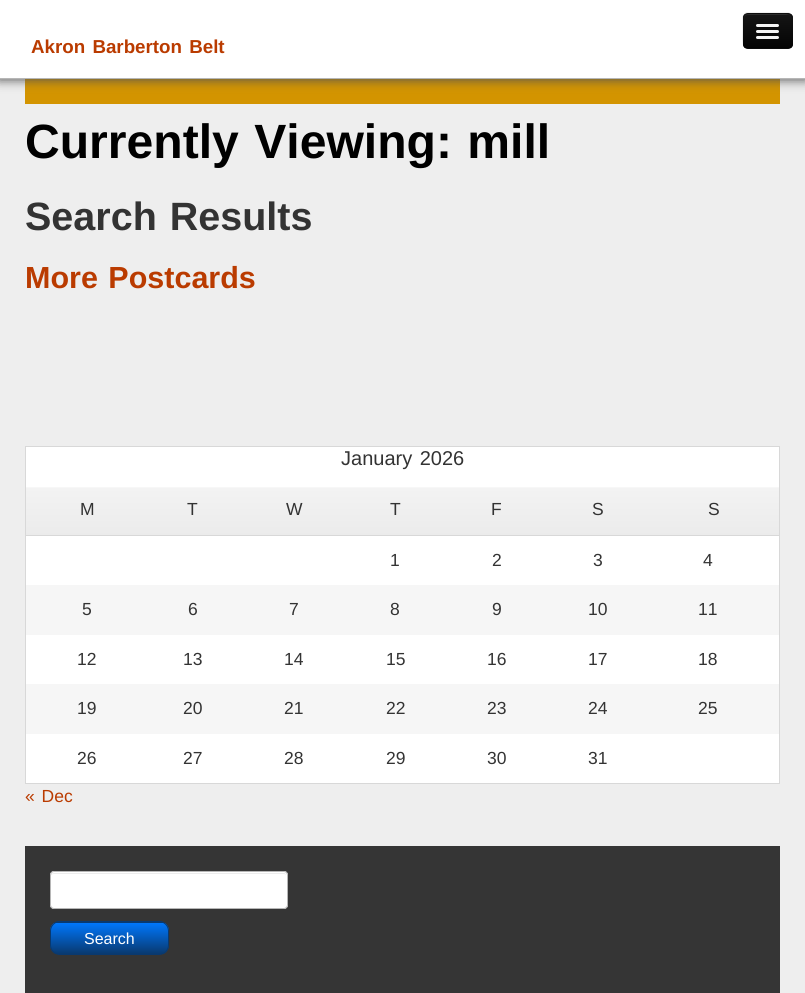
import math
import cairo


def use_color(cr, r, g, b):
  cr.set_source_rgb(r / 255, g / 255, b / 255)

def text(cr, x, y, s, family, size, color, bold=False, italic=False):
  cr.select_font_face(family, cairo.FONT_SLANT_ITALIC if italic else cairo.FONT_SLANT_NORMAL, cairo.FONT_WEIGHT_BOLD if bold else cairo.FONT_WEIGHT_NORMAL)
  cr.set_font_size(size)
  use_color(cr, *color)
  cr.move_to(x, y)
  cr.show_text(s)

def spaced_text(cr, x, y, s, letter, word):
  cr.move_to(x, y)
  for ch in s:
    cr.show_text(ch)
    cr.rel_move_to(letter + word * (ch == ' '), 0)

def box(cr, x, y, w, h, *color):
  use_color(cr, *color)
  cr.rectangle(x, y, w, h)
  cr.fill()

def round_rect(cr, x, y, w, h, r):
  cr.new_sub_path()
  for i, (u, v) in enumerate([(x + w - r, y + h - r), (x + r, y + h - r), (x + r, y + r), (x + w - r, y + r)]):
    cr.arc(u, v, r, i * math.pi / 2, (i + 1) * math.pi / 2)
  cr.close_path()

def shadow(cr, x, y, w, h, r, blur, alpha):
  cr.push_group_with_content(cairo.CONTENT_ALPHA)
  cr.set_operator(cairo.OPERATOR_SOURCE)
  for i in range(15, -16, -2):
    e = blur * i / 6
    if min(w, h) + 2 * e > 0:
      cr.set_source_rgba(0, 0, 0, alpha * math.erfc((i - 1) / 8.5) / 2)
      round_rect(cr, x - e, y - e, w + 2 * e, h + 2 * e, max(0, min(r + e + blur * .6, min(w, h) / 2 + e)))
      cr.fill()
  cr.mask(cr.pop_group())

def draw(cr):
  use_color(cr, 238, 238, 238)
  cr.paint()
  box(cr, 25, 79, 755, 25, 211, 148, 0)
  use_color(cr, 85, 85, 85)
  shadow(cr, -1, -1, 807, 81, 0, 5.5, 1)
  box(cr, 0, 0, 805, 78, 255, 255, 255)
  box(cr, 0, 78, 805, 1, 182, 182, 182)
  use_color(cr, 14, 14, 14)
  round_rect(cr, 743, 13, 50, 36, 5)
  cr.fill()
  cr.save()
  round_rect(cr, 743, 13, 50, 36, 5)
  cr.clip()
  gradient = cairo.LinearGradient(768, 14, 768, 48)
  gradient.add_color_stop_rgba(0, 0.082, 0.082, 0.082, 1)
  gradient.add_color_stop_rgba(1, 0.016, 0.016, 0.016, 1)
  cr.set_source(gradient)
  cr.rectangle(743, 14, 50, 34)
  cr.fill()
  cr.restore()
  use_color(cr, 44, 44, 44)
  cr.new_path()
  cr.move_to(748, 15)
  cr.line_to(788, 15)
  cr.curve_to(790, 15, 791, 17, 791, 19)
  cr.curve_to(791, 13, 785, 14, 780, 14)
  cr.line_to(754, 14)
  cr.curve_to(750, 14, 744, 13, 744, 19)
  cr.curve_to(744, 17, 745, 15, 748, 15)
  cr.close_path()
  cr.fill()
  cr.new_path()
  cr.move_to(790.5, 47)
  cr.curve_to(790, 47.5, 788.5, 48, 787.5, 48)
  cr.line_to(747.5, 48)
  cr.curve_to(746.5, 48, 745, 47.5, 744.5, 47)
  cr.set_source_rgba(0, 0, 0, 0.25)
  cr.set_line_width(1.2)
  cr.stroke()
  cr.new_path()
  cr.move_to(744.5, 47)
  cr.curve_to(742, 44, 743, 34, 743, 30.5)
  cr.line_to(743, 22)
  cr.curve_to(743, 18.5, 742.5, 14, 746.5, 13)
  cr.line_to(788.5, 13)
  cr.curve_to(792.5, 14, 792, 18.5, 792, 22)
  cr.line_to(792, 30.5)
  cr.curve_to(792, 34, 793, 44, 790.5, 47)
  cr.set_source_rgba(0, 0, 0, 0.1)
  cr.stroke()
  use_color(cr, 11, 11, 11)
  cr.new_path()
  cr.move_to(756.5, 25.5)
  cr.line_to(756, 27)
  cr.curve_to(756.5, 29, 760, 28, 761, 28)
  cr.line_to(774, 28)
  cr.curve_to(775, 28, 778.5, 29, 779, 27)
  cr.line_to(778.5, 25.5)
  cr.curve_to(778.5, 26, 778, 26, 777.5, 26)
  cr.line_to(757.5, 26)
  cr.curve_to(757, 26, 756.5, 26, 756.5, 25.5)
  cr.close_path()
  cr.fill()
  use_color(cr, 245, 245, 245)
  round_rect(cr, 756, 24, 23, 3, 1.5)
  cr.fill()
  use_color(cr, 8, 8, 8)
  cr.new_path()
  cr.move_to(756.5, 31.5)
  cr.curve_to(754, 34.5, 760.5, 34, 761, 34)
  cr.line_to(774, 34)
  cr.curve_to(774.5, 34, 781, 34.5, 778.5, 31.5)
  cr.curve_to(778.5, 32, 778, 32.5, 777.5, 32.5)
  cr.line_to(757.5, 32.5)
  cr.curve_to(757, 32.5, 756.5, 32, 756.5, 31.5)
  cr.close_path()
  cr.fill()
  use_color(cr, 245, 245, 245)
  round_rect(cr, 756, 30, 23, 3, 1.5)
  cr.fill()
  round_rect(cr, 756, 36, 23, 3, 1.5)
  cr.fill()
  use_color(cr, 255, 255, 255)
  cr.rectangle(25.5, 446.5, 754, 337)
  cr.fill_preserve()
  use_color(cr, 216, 216, 216)
  cr.set_line_width(1)
  cr.stroke()
  gradient = cairo.LinearGradient(84, 485, 84, 535)
  gradient.add_color_stop_rgba(0, 1, 1, 1, 1)
  gradient.add_color_stop_rgba(0.03, 1, 1, 1, 1)
  gradient.add_color_stop_rgba(0.06, 0.953, 0.953, 0.953, 1)
  gradient.add_color_stop_rgba(1, 0.922, 0.922, 0.922, 1)
  cr.set_source(gradient)
  cr.rectangle(26, 487, 117, 48)
  cr.fill()
  box(cr, 26, 535, 753, 1, 216, 216, 216)
  gradient = cairo.LinearGradient(193, 485, 193, 535)
  gradient.add_color_stop_rgba(0, 1, 1, 1, 1)
  gradient.add_color_stop_rgba(0.03, 1, 1, 1, 1)
  gradient.add_color_stop_rgba(0.06, 0.953, 0.953, 0.953, 1)
  gradient.add_color_stop_rgba(1, 0.922, 0.922, 0.922, 1)
  cr.set_source(gradient)
  cr.rectangle(143, 487, 101, 48)
  cr.fill()
  gradient = cairo.LinearGradient(294, 485, 294, 535)
  gradient.add_color_stop_rgba(0, 1, 1, 1, 1)
  gradient.add_color_stop_rgba(0.03, 1, 1, 1, 1)
  gradient.add_color_stop_rgba(0.06, 0.953, 0.953, 0.953, 1)
  gradient.add_color_stop_rgba(1, 0.922, 0.922, 0.922, 1)
  cr.set_source(gradient)
  cr.rectangle(244, 487, 101, 48)
  cr.fill()
  gradient = cairo.LinearGradient(396, 485, 396, 535)
  gradient.add_color_stop_rgba(0, 1, 1, 1, 1)
  gradient.add_color_stop_rgba(0.03, 1, 1, 1, 1)
  gradient.add_color_stop_rgba(0.06, 0.953, 0.953, 0.953, 1)
  gradient.add_color_stop_rgba(1, 0.922, 0.922, 0.922, 1)
  cr.set_source(gradient)
  cr.rectangle(345, 487, 101, 48)
  cr.fill()
  gradient = cairo.LinearGradient(497, 485, 497, 535)
  gradient.add_color_stop_rgba(0, 1, 1, 1, 1)
  gradient.add_color_stop_rgba(0.03, 1, 1, 1, 1)
  gradient.add_color_stop_rgba(0.06, 0.953, 0.953, 0.953, 1)
  gradient.add_color_stop_rgba(1, 0.922, 0.922, 0.922, 1)
  cr.set_source(gradient)
  cr.rectangle(446, 487, 102, 48)
  cr.fill()
  gradient = cairo.LinearGradient(598, 485, 598, 535)
  gradient.add_color_stop_rgba(0, 1, 1, 1, 1)
  gradient.add_color_stop_rgba(0.03, 1, 1, 1, 1)
  gradient.add_color_stop_rgba(0.06, 0.953, 0.953, 0.953, 1)
  gradient.add_color_stop_rgba(1, 0.922, 0.922, 0.922, 1)
  cr.set_source(gradient)
  cr.rectangle(548, 487, 101, 48)
  cr.fill()
  gradient = cairo.LinearGradient(714, 485, 714, 535)
  gradient.add_color_stop_rgba(0, 1, 1, 1, 1)
  gradient.add_color_stop_rgba(0.03, 1, 1, 1, 1)
  gradient.add_color_stop_rgba(0.06, 0.953, 0.953, 0.953, 1)
  gradient.add_color_stop_rgba(1, 0.922, 0.922, 0.922, 1)
  cr.set_source(gradient)
  cr.rectangle(649, 487, 130, 48)
  cr.fill()
  box(cr, 26, 585, 753, 50, 246, 246, 246)
  box(cr, 26, 684, 753, 50, 246, 246, 246)
  box(cr, 25, 846, 755, 147, 53, 53, 53)
  use_color(cr, 255, 255, 255)
  round_rect(cr, 50, 871, 238, 38, 4)
  cr.fill()
  use_color(cr, 236, 236, 236)
  cr.new_path()
  cr.move_to(54, 874)
  cr.line_to(284, 874)
  cr.curve_to(285, 874, 286, 875, 286, 876)
  cr.curve_to(286, 874, 285, 873, 284, 873)
  cr.line_to(54, 873)
  cr.line_to(51, 874)
  cr.line_to(51, 876)
  cr.curve_to(51, 875, 52, 874, 54, 874)
  cr.close_path()
  cr.fill()
  round_rect(cr, 50.5, 871.5, 237, 37, 3.5)
  use_color(cr, 182, 182, 182)
  cr.stroke()
  cr.save()
  round_rect(cr, 50, 921, 119, 34, 10)
  cr.clip()
  gradient = cairo.LinearGradient(109, 891, 109, 923)
  gradient.add_color_stop_rgba(0.01, 0, 0.463, 0.984, 1)
  gradient.add_color_stop_rgba(1, 0.035, 0.224, 0.435, 1)
  cr.set_source(gradient)
  cr.rectangle(50, 921, 119, 2)
  cr.fill()
  gradient = cairo.LinearGradient(109, 923, 109, 954)
  gradient.add_color_stop_rgba(0.01, 0, 0.463, 0.984, 1)
  gradient.add_color_stop_rgba(1, 0.035, 0.224, 0.435, 1)
  cr.set_source(gradient)
  cr.rectangle(50, 923, 119, 31)
  cr.fill()
  cr.restore()
  round_rect(cr, 50.5, 921.5, 118, 33, 9.5)
  use_color(cr, 9, 57, 111)
  cr.stroke()
  cr.select_font_face("Liberation Sans", cairo.FONT_SLANT_NORMAL, cairo.FONT_WEIGHT_BOLD)
  cr.set_font_size(18.75)
  use_color(cr, 186, 59, 0)
  spaced_text(cr, 31, 53, "Akron Barberton Belt", 0, 2)
  cr.set_font_size(48.1)
  use_color(cr, 0, 0, 0)
  spaced_text(cr, 25, 158, "Currently Viewing: mill", 0, 2)
  cr.set_font_size(39.5)
  use_color(cr, 51, 51, 51)
  spaced_text(cr, 25, 230, "Search Results", 0, 2)
  cr.set_font_size(30.5)
  use_color(cr, 186, 59, 0)
  spaced_text(cr, 25, 288, "More Postcards", 0, 2)
  cr.select_font_face("Liberation Sans")
  cr.set_font_size(20)
  use_color(cr, 51, 51, 51)
  spaced_text(cr, 341, 465, "January 2026", 0, 2)
  text(cr, 80, 515, "M", "Liberation Sans", 17.5, (51, 51, 51))
  text(cr, 187, 515, "T", "Liberation Sans", 17.5, (51, 51, 51))
  text(cr, 286, 515, "W", "Liberation Sans", 17.5, (51, 51, 51))
  text(cr, 390, 515, "T", "Liberation Sans", 17.5, (51, 51, 51))
  text(cr, 491, 515, "F", "Liberation Sans", 17.5, (51, 51, 51))
  text(cr, 592, 515, "S", "Liberation Sans", 17.5, (51, 51, 51))
  text(cr, 708, 515, "S", "Liberation Sans", 17.5, (51, 51, 51))
  text(cr, 390, 566, "1", "Liberation Sans", 17.5, (51, 51, 51))
  text(cr, 492, 566, "2", "Liberation Sans", 17.5, (51, 51, 51))
  text(cr, 593, 566, "3", "Liberation Sans", 17.5, (51, 51, 51))
  text(cr, 703, 566, "4", "Liberation Sans", 17.5, (51, 51, 51))
  text(cr, 82, 615, "5", "Liberation Sans", 17.5, (51, 51, 51))
  text(cr, 188, 615, "6", "Liberation Sans", 17.5, (51, 51, 51))
  text(cr, 289, 615, "7", "Liberation Sans", 17.5, (51, 51, 51))
  text(cr, 390, 615, "8", "Liberation Sans", 17.5, (51, 51, 51))
  text(cr, 492, 615, "9", "Liberation Sans", 17.5, (51, 51, 51))
  text(cr, 588, 615, "10", "Liberation Sans", 17.5, (51, 51, 51))
  text(cr, 698, 615, "11", "Liberation Sans", 17.5, (51, 51, 51))
  text(cr, 77, 665, "12", "Liberation Sans", 17.5, (51, 51, 51))
  text(cr, 183, 665, "13", "Liberation Sans", 17.5, (51, 51, 51))
  text(cr, 284, 665, "14", "Liberation Sans", 17.5, (51, 51, 51))
  text(cr, 386, 665, "15", "Liberation Sans", 17.5, (51, 51, 51))
  text(cr, 487, 665, "16", "Liberation Sans", 17.5, (51, 51, 51))
  text(cr, 588, 665, "17", "Liberation Sans", 17.5, (51, 51, 51))
  text(cr, 698, 665, "18", "Liberation Sans", 17.5, (51, 51, 51))
  text(cr, 77, 714, "19", "Liberation Sans", 17.5, (51, 51, 51))
  text(cr, 183, 714, "20", "Liberation Sans", 17.5, (51, 51, 51))
  text(cr, 284, 714, "21", "Liberation Sans", 17.5, (51, 51, 51))
  text(cr, 386, 714, "22", "Liberation Sans", 17.5, (51, 51, 51))
  text(cr, 487, 714, "23", "Liberation Sans", 17.5, (51, 51, 51))
  text(cr, 588, 714, "24", "Liberation Sans", 17.5, (51, 51, 51))
  text(cr, 698, 714, "25", "Liberation Sans", 17.5, (51, 51, 51))
  text(cr, 77, 764, "26", "Liberation Sans", 17.5, (51, 51, 51))
  text(cr, 183, 764, "27", "Liberation Sans", 17.5, (51, 51, 51))
  text(cr, 284, 764, "28", "Liberation Sans", 17.5, (51, 51, 51))
  text(cr, 386, 764, "29", "Liberation Sans", 17.5, (51, 51, 51))
  text(cr, 487, 764, "30", "Liberation Sans", 17.5, (51, 51, 51))
  text(cr, 588, 764, "31", "Liberation Sans", 17.5, (51, 51, 51))
  use_color(cr, 186, 59, 0)
  spaced_text(cr, 25, 802, "« Dec", 0, 2)
  text(cr, 84, 944, "Search", "Liberation Sans", 16, (255, 255, 255))


surface = cairo.ImageSurface(cairo.FORMAT_RGB24, 805, 993)
cr = cairo.Context(surface)
options = cairo.FontOptions()
options.set_hint_metrics(cairo.HINT_METRICS_OFF)
options.set_hint_style(cairo.HINT_STYLE_NONE)
cr.set_font_options(options)
cr.set_miter_limit(4)
draw(cr)
surface.write_to_png("out.png")
